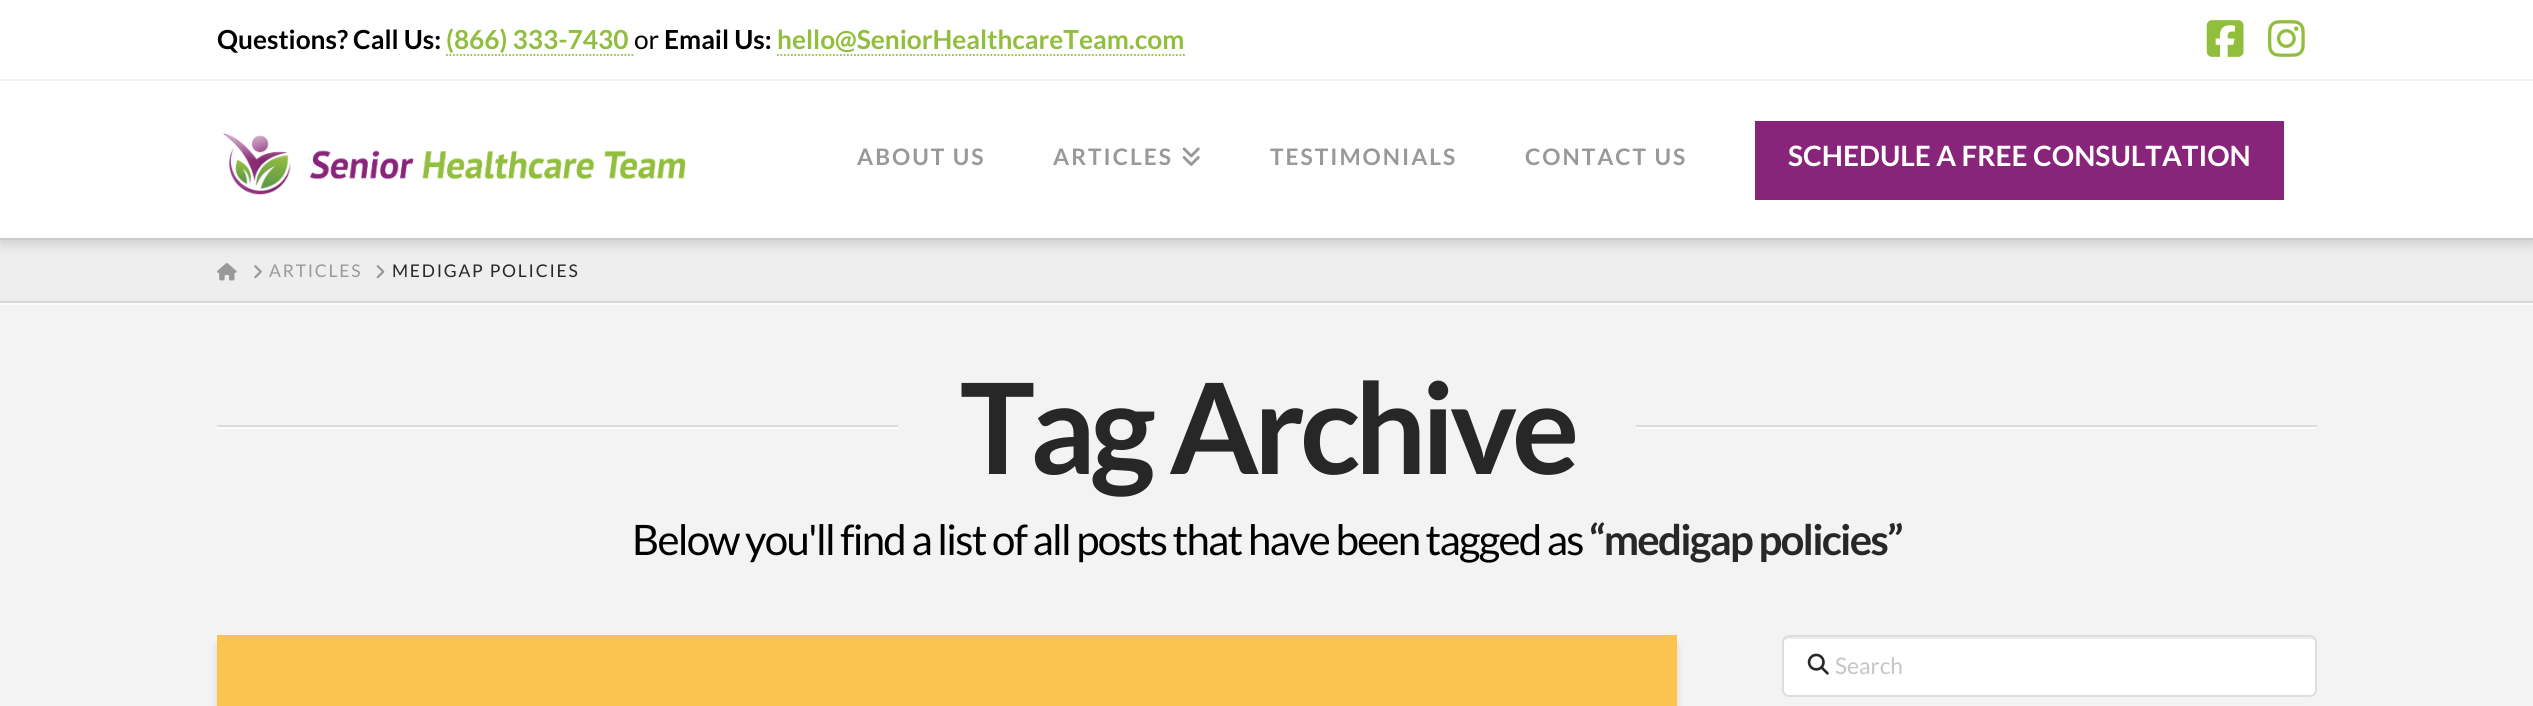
import math
import cairo


def use_color(cr, r, g, b):
  cr.set_source_rgb(r / 255, g / 255, b / 255)

def text(cr, x, y, s, family, size, color, bold=False, italic=False):
  cr.select_font_face(family, cairo.FONT_SLANT_ITALIC if italic else cairo.FONT_SLANT_NORMAL, cairo.FONT_WEIGHT_BOLD if bold else cairo.FONT_WEIGHT_NORMAL)
  cr.set_font_size(size)
  use_color(cr, *color)
  cr.move_to(x, y)
  cr.show_text(s)

def spaced_text(cr, x, y, s, letter, word):
  cr.move_to(x, y)
  for ch in s:
    cr.show_text(ch)
    cr.rel_move_to(letter + word * (ch == ' '), 0)

def box(cr, x, y, w, h, *color):
  use_color(cr, *color)
  cr.rectangle(x, y, w, h)
  cr.fill()

def round_rect(cr, x, y, w, h, r):
  cr.new_sub_path()
  for i, (u, v) in enumerate([(x + w - r, y + h - r), (x + r, y + h - r), (x + r, y + r), (x + w - r, y + r)]):
    cr.arc(u, v, r, i * math.pi / 2, (i + 1) * math.pi / 2)
  cr.close_path()

def shadow(cr, x, y, w, h, r, blur, alpha):
  cr.push_group_with_content(cairo.CONTENT_ALPHA)
  cr.set_operator(cairo.OPERATOR_SOURCE)
  for i in range(15, -16, -2):
    e = blur * i / 6
    if min(w, h) + 2 * e > 0:
      cr.set_source_rgba(0, 0, 0, alpha * math.erfc((i - 1) / 8.5) / 2)
      round_rect(cr, x - e, y - e, w + 2 * e, h + 2 * e, max(0, min(r + e + blur * .6, min(w, h) / 2 + e)))
      cr.fill()
  cr.mask(cr.pop_group())

def picture(cr, path, x, y, w, h):
  cr.save()
  cr.set_source_surface(cairo.ImageSurface.create_from_png(path), x, y)
  cr.rectangle(x, y, w, h)
  cr.fill()
  cr.restore()

def draw(cr):
  use_color(cr, 243, 243, 243)
  cr.paint()
  box(cr, 0, 240, 2533, 61, 238, 238, 238)
  use_color(cr, 0, 0, 0)
  shadow(cr, 0, 86, 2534, 159, 0, 5.5, 0.13)
  box(cr, 0, 0, 2533, 79, 255, 255, 255)
  box(cr, 0, 79, 2533, 2, 242, 242, 242)
  cr.new_path()
  cr.move_to(446, 55)
  cr.line_to(633.5, 55)
  use_color(cr, 146, 190, 61)
  cr.set_line_width(1.8)
  cr.set_dash([1.75, 1.75])
  cr.stroke()
  cr.new_path()
  cr.move_to(777, 55)
  cr.line_to(1185, 55)
  cr.stroke()
  picture(cr, "img_01.png", 2206, 20, 38, 37)
  picture(cr, "img_02.png", 2268, 20, 37, 37)
  box(cr, 0, 81, 2533, 157, 255, 255, 255)
  box(cr, 0, 238, 2533, 2, 204, 204, 204)
  picture(cr, "img_03.png", 223, 133, 463, 62)
  picture(cr, "img_04.png", 1182, 147, 18, 19)
  box(cr, 1755, 121, 529, 79, 136, 37, 123)
  box(cr, 0, 303, 2533, 2, 252, 252, 252)
  box(cr, 0, 301, 2533, 2, 214, 214, 214)
  picture(cr, "img_05.png", 217, 263, 20, 18)
  picture(cr, "img_06.png", 254, 265, 8, 14)
  picture(cr, "img_07.png", 376, 265, 9, 14)
  box(cr, 217, 427, 681, 2, 253, 253, 253)
  box(cr, 217, 425, 681, 2, 219, 219, 219)
  box(cr, 1636, 427, 681, 2, 253, 253, 253)
  box(cr, 1636, 425, 681, 2, 219, 219, 219)
  use_color(cr, 0, 0, 0)
  shadow(cr, 217, 646, 1446, 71, 0, 3.5, 0.13)
  shadow(cr, 231, 646, 1446, 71, 0, 3.5, 0.13)
  box(cr, 217, 635, 1460, 71, 253, 195, 80)
  use_color(cr, 255, 255, 255)
  round_rect(cr, 1782, 635, 535, 62, 7)
  cr.fill()
  use_color(cr, 236, 236, 236)
  cr.new_path()
  cr.move_to(1788, 639)
  cr.line_to(2310, 639)
  cr.curve_to(2313, 639, 2315, 641, 2315, 644)
  cr.curve_to(2315, 641, 2314, 637, 2310, 637)
  cr.line_to(1788, 637)
  cr.curve_to(1784, 637, 1783, 641, 1783, 644)
  cr.curve_to(1783, 641, 1786, 639, 1788, 639)
  cr.close_path()
  cr.fill()
  round_rect(cr, 1783, 636, 533, 60, 6)
  use_color(cr, 221, 221, 221)
  cr.set_line_width(2)
  cr.set_dash([])
  cr.stroke()
  picture(cr, "img_08.png", 1807, 653, 22, 22)
  text(cr, 217, 49, "Questions? Call Us:", "Lato", 26.25, (0, 0, 0), bold=True)
  text(cr, 446, 49, "(866) 333-7430", "Lato", 26.25, (146, 190, 61), bold=True)
  text(cr, 634, 49, "or", "Lato", 26.25, (0, 0, 0))
  text(cr, 664, 49, "Email Us:", "Lato", 26.25, (0, 0, 0), bold=True)
  text(cr, 777, 49, "hello@SeniorHealthcareTeam.com", "Lato", 26.25, (146, 190, 61), bold=True)
  cr.set_font_size(22.75)
  use_color(cr, 153, 153, 153)
  spaced_text(cr, 857, 165, "ABOUT US", 2, 0)
  spaced_text(cr, 1053, 165, "ARTICLES", 2, 0)
  spaced_text(cr, 1270, 165, "TESTIMONIALS", 2, 0)
  spaced_text(cr, 1525, 165, "CONTACT US", 2, 0)
  text(cr, 1788, 166, "SCHEDULE A FREE CONSULTATION", "Lato", 28, (255, 255, 255), bold=True)
  cr.select_font_face("Lato")
  cr.set_font_size(17.5)
  use_color(cr, 153, 153, 153)
  spaced_text(cr, 269, 277, "ARTICLES", 1.75, 0)
  use_color(cr, 39, 39, 39)
  spaced_text(cr, 392, 277, "MEDIGAP POLICIES", 1.75, 0)
  cr.select_font_face("Lato", cairo.FONT_SLANT_NORMAL, cairo.FONT_WEIGHT_BOLD)
  cr.set_font_size(126)
  spaced_text(cr, 960, 474, "Tag Archive", -5.25, 0)
  cr.select_font_face("Lato")
  cr.set_font_size(42)
  use_color(cr, 0, 0, 0)
  spaced_text(cr, 632, 555, "Below you'll find a list of all posts that have been tagged as", -1.75, 0)
  cr.select_font_face("Lato", cairo.FONT_SLANT_NORMAL, cairo.FONT_WEIGHT_BOLD)
  use_color(cr, 39, 39, 39)
  spaced_text(cr, 1589, 555, "“medigap policies”", -1.75, 0)
  text(cr, 1835, 674, "Search", "Lato", 22.75, (197, 197, 197))


surface = cairo.ImageSurface(cairo.FORMAT_RGB24, 2533, 706)
cr = cairo.Context(surface)
options = cairo.FontOptions()
options.set_hint_metrics(cairo.HINT_METRICS_OFF)
options.set_hint_style(cairo.HINT_STYLE_NONE)
cr.set_font_options(options)
cr.set_miter_limit(4)
draw(cr)
surface.write_to_png("out.png")
